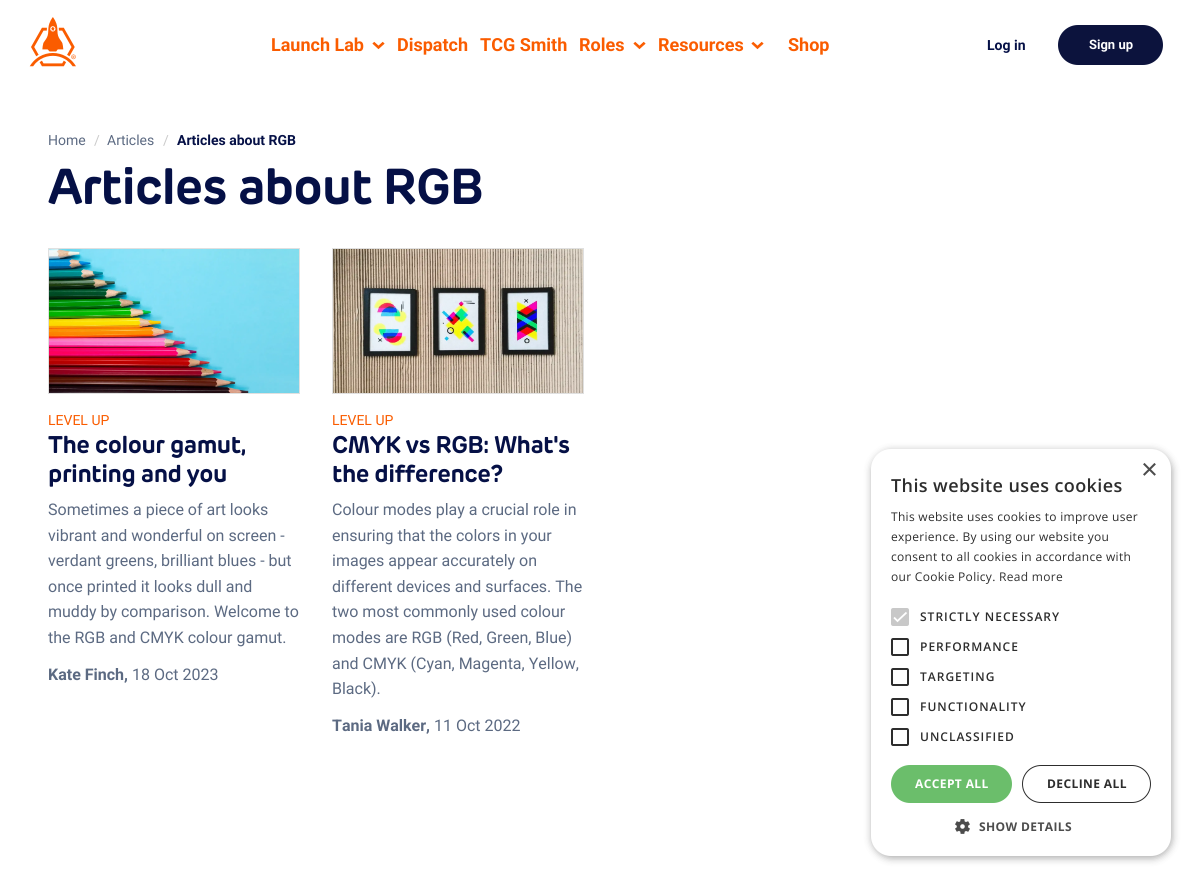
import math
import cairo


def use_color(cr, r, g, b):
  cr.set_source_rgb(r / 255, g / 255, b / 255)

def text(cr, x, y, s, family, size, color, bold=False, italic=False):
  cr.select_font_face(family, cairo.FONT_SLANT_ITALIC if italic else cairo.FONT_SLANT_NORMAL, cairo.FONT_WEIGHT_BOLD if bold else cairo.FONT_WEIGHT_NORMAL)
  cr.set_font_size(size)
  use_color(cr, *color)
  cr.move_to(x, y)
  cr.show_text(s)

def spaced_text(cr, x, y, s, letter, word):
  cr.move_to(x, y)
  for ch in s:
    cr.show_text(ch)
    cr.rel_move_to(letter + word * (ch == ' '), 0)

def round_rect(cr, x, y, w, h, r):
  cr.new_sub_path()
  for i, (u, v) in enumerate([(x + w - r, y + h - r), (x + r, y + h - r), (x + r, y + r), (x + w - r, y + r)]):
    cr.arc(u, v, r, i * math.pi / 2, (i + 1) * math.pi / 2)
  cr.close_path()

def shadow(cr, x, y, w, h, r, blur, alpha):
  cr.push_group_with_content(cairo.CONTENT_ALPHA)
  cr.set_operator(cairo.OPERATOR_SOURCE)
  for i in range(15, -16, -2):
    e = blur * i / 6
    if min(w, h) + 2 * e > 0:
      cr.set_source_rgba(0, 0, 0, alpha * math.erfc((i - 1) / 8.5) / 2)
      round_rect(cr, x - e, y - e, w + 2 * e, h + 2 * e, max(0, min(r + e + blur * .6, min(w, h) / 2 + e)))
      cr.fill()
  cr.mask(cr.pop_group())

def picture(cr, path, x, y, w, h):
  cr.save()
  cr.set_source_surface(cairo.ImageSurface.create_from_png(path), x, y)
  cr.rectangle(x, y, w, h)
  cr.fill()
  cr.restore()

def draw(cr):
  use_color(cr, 255, 255, 255)
  cr.paint()
  picture(cr, "img_01.png", 29, 17, 47, 50)
  picture(cr, "img_02.png", 372, 41, 13, 9)
  picture(cr, "img_02.png", 633, 41, 13, 9)
  picture(cr, "img_02.png", 751, 41, 13, 9)
  use_color(cr, 12, 19, 61)
  round_rect(cr, 1058, 25, 105, 40, 20)
  cr.fill()
  cr.rectangle(48.5, 248.5, 251, 145)
  use_color(cr, 224, 224, 224)
  cr.set_line_width(1)
  cr.stroke()
  picture(cr, "img_03.png", 49, 249, 250, 144)
  cr.rectangle(332.5, 248.5, 251, 145)
  cr.stroke()
  picture(cr, "img_04.png", 333, 249, 250, 144)
  use_color(cr, 0, 0, 0)
  shadow(cr, 872, 451, 300, 407, 20, 4, 0.35)
  use_color(cr, 255, 255, 255)
  round_rect(cr, 871, 449, 300, 407, 20)
  cr.fill()
  use_color(cr, 200, 200, 200)
  round_rect(cr, 891, 608, 18, 18, 2)
  cr.fill()
  cr.new_path()
  cr.move_to(894, 617.5)
  cr.line_to(897.5, 621)
  cr.line_to(906.5, 612.5)
  use_color(cr, 255, 255, 255)
  cr.set_line_width(1.8)
  cr.stroke()
  round_rect(cr, 892, 639, 16, 16, 1)
  use_color(cr, 45, 45, 45)
  cr.set_line_width(2)
  cr.stroke()
  round_rect(cr, 892, 669, 16, 16, 1)
  cr.stroke()
  round_rect(cr, 892, 699, 16, 16, 1)
  cr.stroke()
  round_rect(cr, 892, 729, 16, 16, 1)
  cr.stroke()
  use_color(cr, 107, 190, 107)
  round_rect(cr, 891, 765, 121, 38, 19)
  cr.fill()
  round_rect(cr, 1022.5, 765.5, 128, 37, 18.5)
  use_color(cr, 45, 45, 45)
  cr.set_line_width(1)
  cr.stroke()
  picture(cr, "img_05.png", 955, 819, 15, 15)
  text(cr, 271, 51, "Launch Lab", "Roboto", 18, (250, 92, 0), bold=True)
  text(cr, 397, 51, "Dispatch", "Roboto", 18, (250, 92, 0), bold=True)
  text(cr, 480, 51, "TCG Smith", "Roboto", 18, (250, 92, 0), bold=True)
  text(cr, 579, 51, "Roles", "Roboto", 18, (250, 92, 0), bold=True)
  text(cr, 658, 51, "Resources", "Roboto", 18, (250, 92, 0), bold=True)
  text(cr, 788, 51, "Shop", "Roboto", 18, (250, 92, 0), bold=True)
  text(cr, 987, 50, "Log in", "Roboto", 14, (5, 16, 70), bold=True)
  text(cr, 1089, 49, "Sign up", "Roboto", 13, (255, 255, 255), bold=True)
  text(cr, 48, 145, "Home", "Roboto", 14, (92, 106, 130))
  text(cr, 94, 145, "/", "Roboto", 14, (203, 203, 203))
  text(cr, 107, 145, "Articles", "Roboto", 14, (92, 106, 130))
  text(cr, 163, 145, "/", "Roboto", 14, (203, 203, 203))
  text(cr, 177, 145, "Articles about RGB", "Roboto", 14, (5, 16, 70), bold=True)
  cr.select_font_face("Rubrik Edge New", cairo.FONT_SLANT_NORMAL, cairo.FONT_WEIGHT_BOLD)
  cr.set_font_size(50)
  spaced_text(cr, 48, 204, "Articles about RGB", -1, 0)
  text(cr, 48, 425, "LEVEL UP", "Roboto", 14, (250, 92, 0))
  cr.select_font_face("Rubrik Edge New", cairo.FONT_SLANT_NORMAL, cairo.FONT_WEIGHT_BOLD)
  cr.set_font_size(24)
  use_color(cr, 5, 16, 70)
  spaced_text(cr, 48, 453, "The colour gamut,", -0.5, 0)
  spaced_text(cr, 48, 482, "printing and you", -0.5, 0)
  text(cr, 48, 515, "Sometimes a piece of art looks", "Roboto", 16, (92, 106, 130))
  text(cr, 48, 541, "vibrant and wonderful on screen -", "Roboto", 16, (92, 106, 130))
  text(cr, 48, 566, "verdant greens, brilliant blues - but", "Roboto", 16, (92, 106, 130))
  text(cr, 48, 592, "once printed it looks dull and", "Roboto", 16, (92, 106, 130))
  text(cr, 48, 617, "muddy by comparison. Welcome to", "Roboto", 16, (92, 106, 130))
  text(cr, 48, 643, "the RGB and CMYK colour gamut.", "Roboto", 16, (92, 106, 130))
  text(cr, 48, 680, "Kate Finch,", "Roboto", 16, (92, 106, 130), bold=True)
  text(cr, 132, 680, "18 Oct 2023", "Roboto", 16, (92, 106, 130))
  text(cr, 332, 425, "LEVEL UP", "Roboto", 14, (250, 92, 0))
  cr.select_font_face("Rubrik Edge New", cairo.FONT_SLANT_NORMAL, cairo.FONT_WEIGHT_BOLD)
  cr.set_font_size(24)
  use_color(cr, 5, 16, 70)
  spaced_text(cr, 332, 453, "CMYK vs RGB: What's", -0.5, 0)
  spaced_text(cr, 332, 482, "the difference?", -0.5, 0)
  text(cr, 332, 515, "Colour modes play a crucial role in", "Roboto", 16, (92, 106, 130))
  text(cr, 332, 541, "ensuring that the colors in your", "Roboto", 16, (92, 106, 130))
  text(cr, 332, 566, "images appear accurately on", "Roboto", 16, (92, 106, 130))
  text(cr, 332, 592, "different devices and surfaces. The", "Roboto", 16, (92, 106, 130))
  text(cr, 332, 617, "two most commonly used colour", "Roboto", 16, (92, 106, 130))
  text(cr, 332, 643, "modes are RGB (Red, Green, Blue)", "Roboto", 16, (92, 106, 130))
  text(cr, 332, 669, "and CMYK (Cyan, Magenta, Yellow,", "Roboto", 16, (92, 106, 130))
  text(cr, 332, 694, "Black).", "Roboto", 16, (92, 106, 130))
  text(cr, 332, 731, "Tania Walker,", "Roboto", 16, (92, 106, 130), bold=True)
  text(cr, 434, 731, "11 Oct 2022", "Roboto", 16, (92, 106, 130))
  text(cr, 1141, 479, "×", "Liberation Sans", 29, (77, 77, 77))
  cr.select_font_face("Open Sans SemiBold")
  cr.set_font_size(18)
  use_color(cr, 45, 45, 45)
  spaced_text(cr, 891, 492, "This website uses cookies", 0.4, 0)
  cr.select_font_face("Open Sans")
  cr.set_font_size(12)
  spaced_text(cr, 891, 521, "This website uses cookies to improve user", 0.3, 0)
  spaced_text(cr, 891, 541, "experience. By using our website you", 0.3, 0)
  spaced_text(cr, 891, 561, "consent to all cookies in accordance with", 0.3, 0)
  spaced_text(cr, 891, 581, "our Cookie Policy.", 0.3, 0)
  use_color(cr, 51, 51, 51)
  spaced_text(cr, 999, 581, "Read more", 0.3, 0)
  cr.select_font_face("Open Sans SemiBold")
  use_color(cr, 45, 45, 45)
  spaced_text(cr, 920, 621, "STRICTLY NECESSARY", 1, 0)
  spaced_text(cr, 920, 651, "PERFORMANCE", 1, 0)
  spaced_text(cr, 920, 681, "TARGETING", 1, 0)
  spaced_text(cr, 920, 711, "FUNCTIONALITY", 1, 0)
  spaced_text(cr, 920, 741, "UNCLASSIFIED", 1, 0)
  cr.select_font_face("Open Sans", cairo.FONT_SLANT_NORMAL, cairo.FONT_WEIGHT_BOLD)
  use_color(cr, 255, 255, 255)
  spaced_text(cr, 915, 788, "ACCEPT ALL", 0.4, 0)
  use_color(cr, 45, 45, 45)
  spaced_text(cr, 1047, 788, "DECLINE ALL", 0.4, 0)
  use_color(cr, 77, 77, 77)
  spaced_text(cr, 979, 831, "SHOW DETAILS", 0.4, 0)


surface = cairo.ImageSurface(cairo.FORMAT_RGB24, 1191, 876)
cr = cairo.Context(surface)
options = cairo.FontOptions()
options.set_hint_metrics(cairo.HINT_METRICS_OFF)
options.set_hint_style(cairo.HINT_STYLE_NONE)
cr.set_font_options(options)
cr.set_miter_limit(4)
draw(cr)
surface.write_to_png("out.png")
